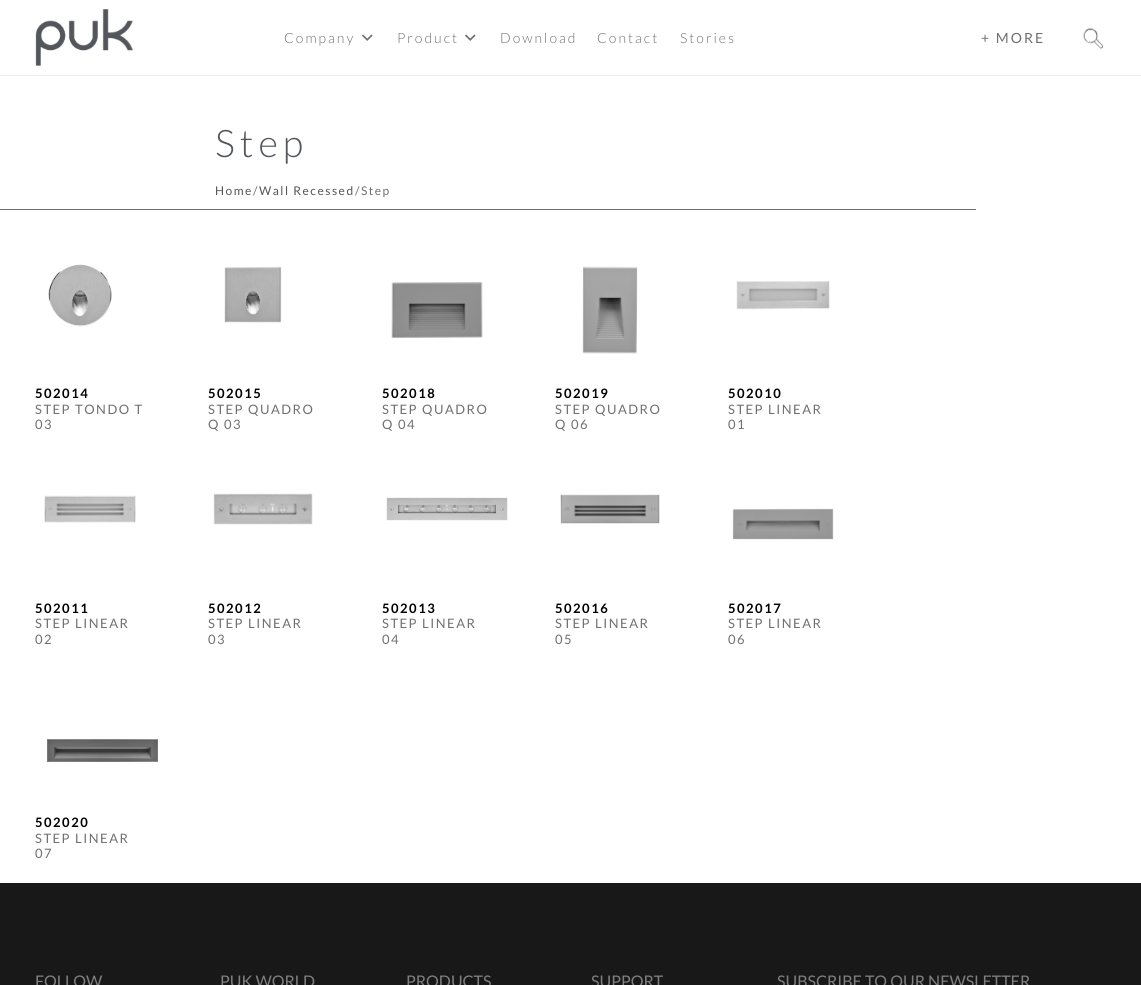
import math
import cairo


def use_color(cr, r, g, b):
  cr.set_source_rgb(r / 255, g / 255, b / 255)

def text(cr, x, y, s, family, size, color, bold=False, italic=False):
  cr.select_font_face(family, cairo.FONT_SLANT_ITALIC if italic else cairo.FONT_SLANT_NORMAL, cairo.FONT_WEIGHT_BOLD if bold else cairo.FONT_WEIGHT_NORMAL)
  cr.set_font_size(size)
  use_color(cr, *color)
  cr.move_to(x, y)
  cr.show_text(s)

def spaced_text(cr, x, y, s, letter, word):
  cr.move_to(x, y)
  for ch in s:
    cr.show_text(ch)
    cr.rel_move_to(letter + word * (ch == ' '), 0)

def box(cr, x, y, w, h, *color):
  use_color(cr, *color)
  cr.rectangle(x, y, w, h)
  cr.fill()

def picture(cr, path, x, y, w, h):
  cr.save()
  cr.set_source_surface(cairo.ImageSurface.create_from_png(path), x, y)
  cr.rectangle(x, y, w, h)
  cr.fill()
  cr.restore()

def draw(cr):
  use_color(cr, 255, 255, 255)
  cr.paint()
  box(cr, 0, 75, 1141, 1, 235, 235, 235)
  picture(cr, "img_01.png", 35, 9, 98, 57)
  picture(cr, "img_02.png", 362, 34, 11, 7)
  picture(cr, "img_02.png", 465, 34, 11, 7)
  picture(cr, "img_03.png", 1083, 28, 21, 21)
  box(cr, 0, 209, 976, 1, 112, 112, 112)
  picture(cr, "img_04.png", 48, 264, 64, 63)
  picture(cr, "img_05.png", 224, 266, 58, 57)
  picture(cr, "img_06.png", 391, 282, 92, 56)
  picture(cr, "img_07.png", 582, 266, 56, 88)
  picture(cr, "img_08.png", 736, 281, 94, 29)
  picture(cr, "img_09.png", 44, 495, 92, 28)
  picture(cr, "img_10.png", 213, 493, 100, 32)
  picture(cr, "img_11.png", 386, 497, 122, 24)
  picture(cr, "img_12.png", 560, 494, 100, 30)
  picture(cr, "img_13.png", 732, 508, 102, 32)
  picture(cr, "img_14.png", 47, 739, 111, 23)
  box(cr, 0, 883, 1141, 102, 24, 24, 24)
  cr.select_font_face("Lato Light")
  cr.set_font_size(14)
  use_color(cr, 112, 112, 112)
  spaced_text(cr, 284, 43, "Company", 2, 0)
  spaced_text(cr, 397, 43, "Product", 2, 0)
  spaced_text(cr, 500, 43, "Download", 2, 0)
  spaced_text(cr, 597, 43, "Contact", 2, 0)
  spaced_text(cr, 680, 43, "Stories", 2, 0)
  cr.select_font_face("Lato")
  spaced_text(cr, 981, 43, "+ MORE", 2, 0)
  cr.select_font_face("Lato Light")
  cr.set_font_size(38)
  use_color(cr, 83, 86, 90)
  spaced_text(cr, 215, 157, "Step", 5, 0)
  cr.select_font_face("Lato")
  cr.set_font_size(12)
  spaced_text(cr, 215, 195, "Home", 1.5, 0)
  use_color(cr, 112, 112, 112)
  spaced_text(cr, 253, 195, "/", 1.5, 0)
  use_color(cr, 83, 86, 90)
  spaced_text(cr, 259, 195, "Wall Recessed", 1.5, 0)
  use_color(cr, 112, 112, 112)
  spaced_text(cr, 355, 195, "/Step", 1.5, 0)
  cr.select_font_face("Lato", cairo.FONT_SLANT_NORMAL, cairo.FONT_WEIGHT_BOLD)
  cr.set_font_size(13)
  use_color(cr, 0, 0, 0)
  spaced_text(cr, 35, 398, "502014", 1.5, 0)
  cr.select_font_face("Lato")
  use_color(cr, 112, 112, 112)
  spaced_text(cr, 35, 414, "STEP TONDO T", 1.5, 0)
  spaced_text(cr, 35, 429, "03", 1.5, 0)
  cr.select_font_face("Lato", cairo.FONT_SLANT_NORMAL, cairo.FONT_WEIGHT_BOLD)
  use_color(cr, 0, 0, 0)
  spaced_text(cr, 208, 398, "502015", 1.5, 0)
  cr.select_font_face("Lato")
  use_color(cr, 112, 112, 112)
  spaced_text(cr, 208, 414, "STEP QUADRO", 1.5, 0)
  spaced_text(cr, 208, 429, "Q 03", 1.5, 0)
  cr.select_font_face("Lato", cairo.FONT_SLANT_NORMAL, cairo.FONT_WEIGHT_BOLD)
  use_color(cr, 0, 0, 0)
  spaced_text(cr, 382, 398, "502018", 1.5, 0)
  cr.select_font_face("Lato")
  use_color(cr, 112, 112, 112)
  spaced_text(cr, 382, 414, "STEP QUADRO", 1.5, 0)
  spaced_text(cr, 382, 429, "Q 04", 1.5, 0)
  cr.select_font_face("Lato", cairo.FONT_SLANT_NORMAL, cairo.FONT_WEIGHT_BOLD)
  use_color(cr, 0, 0, 0)
  spaced_text(cr, 555, 398, "502019", 1.5, 0)
  cr.select_font_face("Lato")
  use_color(cr, 112, 112, 112)
  spaced_text(cr, 555, 414, "STEP QUADRO", 1.5, 0)
  spaced_text(cr, 555, 429, "Q 06", 1.5, 0)
  cr.select_font_face("Lato", cairo.FONT_SLANT_NORMAL, cairo.FONT_WEIGHT_BOLD)
  use_color(cr, 0, 0, 0)
  spaced_text(cr, 728, 398, "502010", 1.5, 0)
  cr.select_font_face("Lato")
  use_color(cr, 112, 112, 112)
  spaced_text(cr, 728, 414, "STEP LINEAR", 1.5, 0)
  spaced_text(cr, 728, 429, "01", 1.5, 0)
  cr.select_font_face("Lato", cairo.FONT_SLANT_NORMAL, cairo.FONT_WEIGHT_BOLD)
  use_color(cr, 0, 0, 0)
  spaced_text(cr, 35, 613, "502011", 1.5, 0)
  cr.select_font_face("Lato")
  use_color(cr, 112, 112, 112)
  spaced_text(cr, 35, 628, "STEP LINEAR", 1.5, 0)
  spaced_text(cr, 35, 644, "02", 1.5, 0)
  cr.select_font_face("Lato", cairo.FONT_SLANT_NORMAL, cairo.FONT_WEIGHT_BOLD)
  use_color(cr, 0, 0, 0)
  spaced_text(cr, 208, 613, "502012", 1.5, 0)
  cr.select_font_face("Lato")
  use_color(cr, 112, 112, 112)
  spaced_text(cr, 208, 628, "STEP LINEAR", 1.5, 0)
  spaced_text(cr, 208, 644, "03", 1.5, 0)
  cr.select_font_face("Lato", cairo.FONT_SLANT_NORMAL, cairo.FONT_WEIGHT_BOLD)
  use_color(cr, 0, 0, 0)
  spaced_text(cr, 382, 613, "502013", 1.5, 0)
  cr.select_font_face("Lato")
  use_color(cr, 112, 112, 112)
  spaced_text(cr, 382, 628, "STEP LINEAR", 1.5, 0)
  spaced_text(cr, 382, 644, "04", 1.5, 0)
  cr.select_font_face("Lato", cairo.FONT_SLANT_NORMAL, cairo.FONT_WEIGHT_BOLD)
  use_color(cr, 0, 0, 0)
  spaced_text(cr, 555, 613, "502016", 1.5, 0)
  cr.select_font_face("Lato")
  use_color(cr, 112, 112, 112)
  spaced_text(cr, 555, 628, "STEP LINEAR", 1.5, 0)
  spaced_text(cr, 555, 644, "05", 1.5, 0)
  cr.select_font_face("Lato", cairo.FONT_SLANT_NORMAL, cairo.FONT_WEIGHT_BOLD)
  use_color(cr, 0, 0, 0)
  spaced_text(cr, 728, 613, "502017", 1.5, 0)
  cr.select_font_face("Lato")
  use_color(cr, 112, 112, 112)
  spaced_text(cr, 728, 628, "STEP LINEAR", 1.5, 0)
  spaced_text(cr, 728, 644, "06", 1.5, 0)
  cr.select_font_face("Lato", cairo.FONT_SLANT_NORMAL, cairo.FONT_WEIGHT_BOLD)
  use_color(cr, 0, 0, 0)
  spaced_text(cr, 35, 827, "502020", 1.5, 0)
  cr.select_font_face("Lato")
  use_color(cr, 112, 112, 112)
  spaced_text(cr, 35, 843, "STEP LINEAR", 1.5, 0)
  spaced_text(cr, 35, 858, "07", 1.5, 0)
  text(cr, 35, 987, "FOLLOW", "Lato", 16, (128, 128, 128))
  text(cr, 220, 987, "PUK WORLD", "Lato", 16, (128, 128, 128))
  text(cr, 406, 987, "PRODUCTS", "Lato", 16, (128, 128, 128))
  text(cr, 591, 987, "SUPPORT", "Lato", 16, (128, 128, 128))
  text(cr, 777, 987, "SUBSCRIBE TO OUR NEWSLETTER", "Lato", 16, (128, 128, 128))


surface = cairo.ImageSurface(cairo.FORMAT_RGB24, 1141, 985)
cr = cairo.Context(surface)
options = cairo.FontOptions()
options.set_hint_metrics(cairo.HINT_METRICS_OFF)
options.set_hint_style(cairo.HINT_STYLE_NONE)
cr.set_font_options(options)
cr.set_miter_limit(4)
draw(cr)
surface.write_to_png("out.png")
